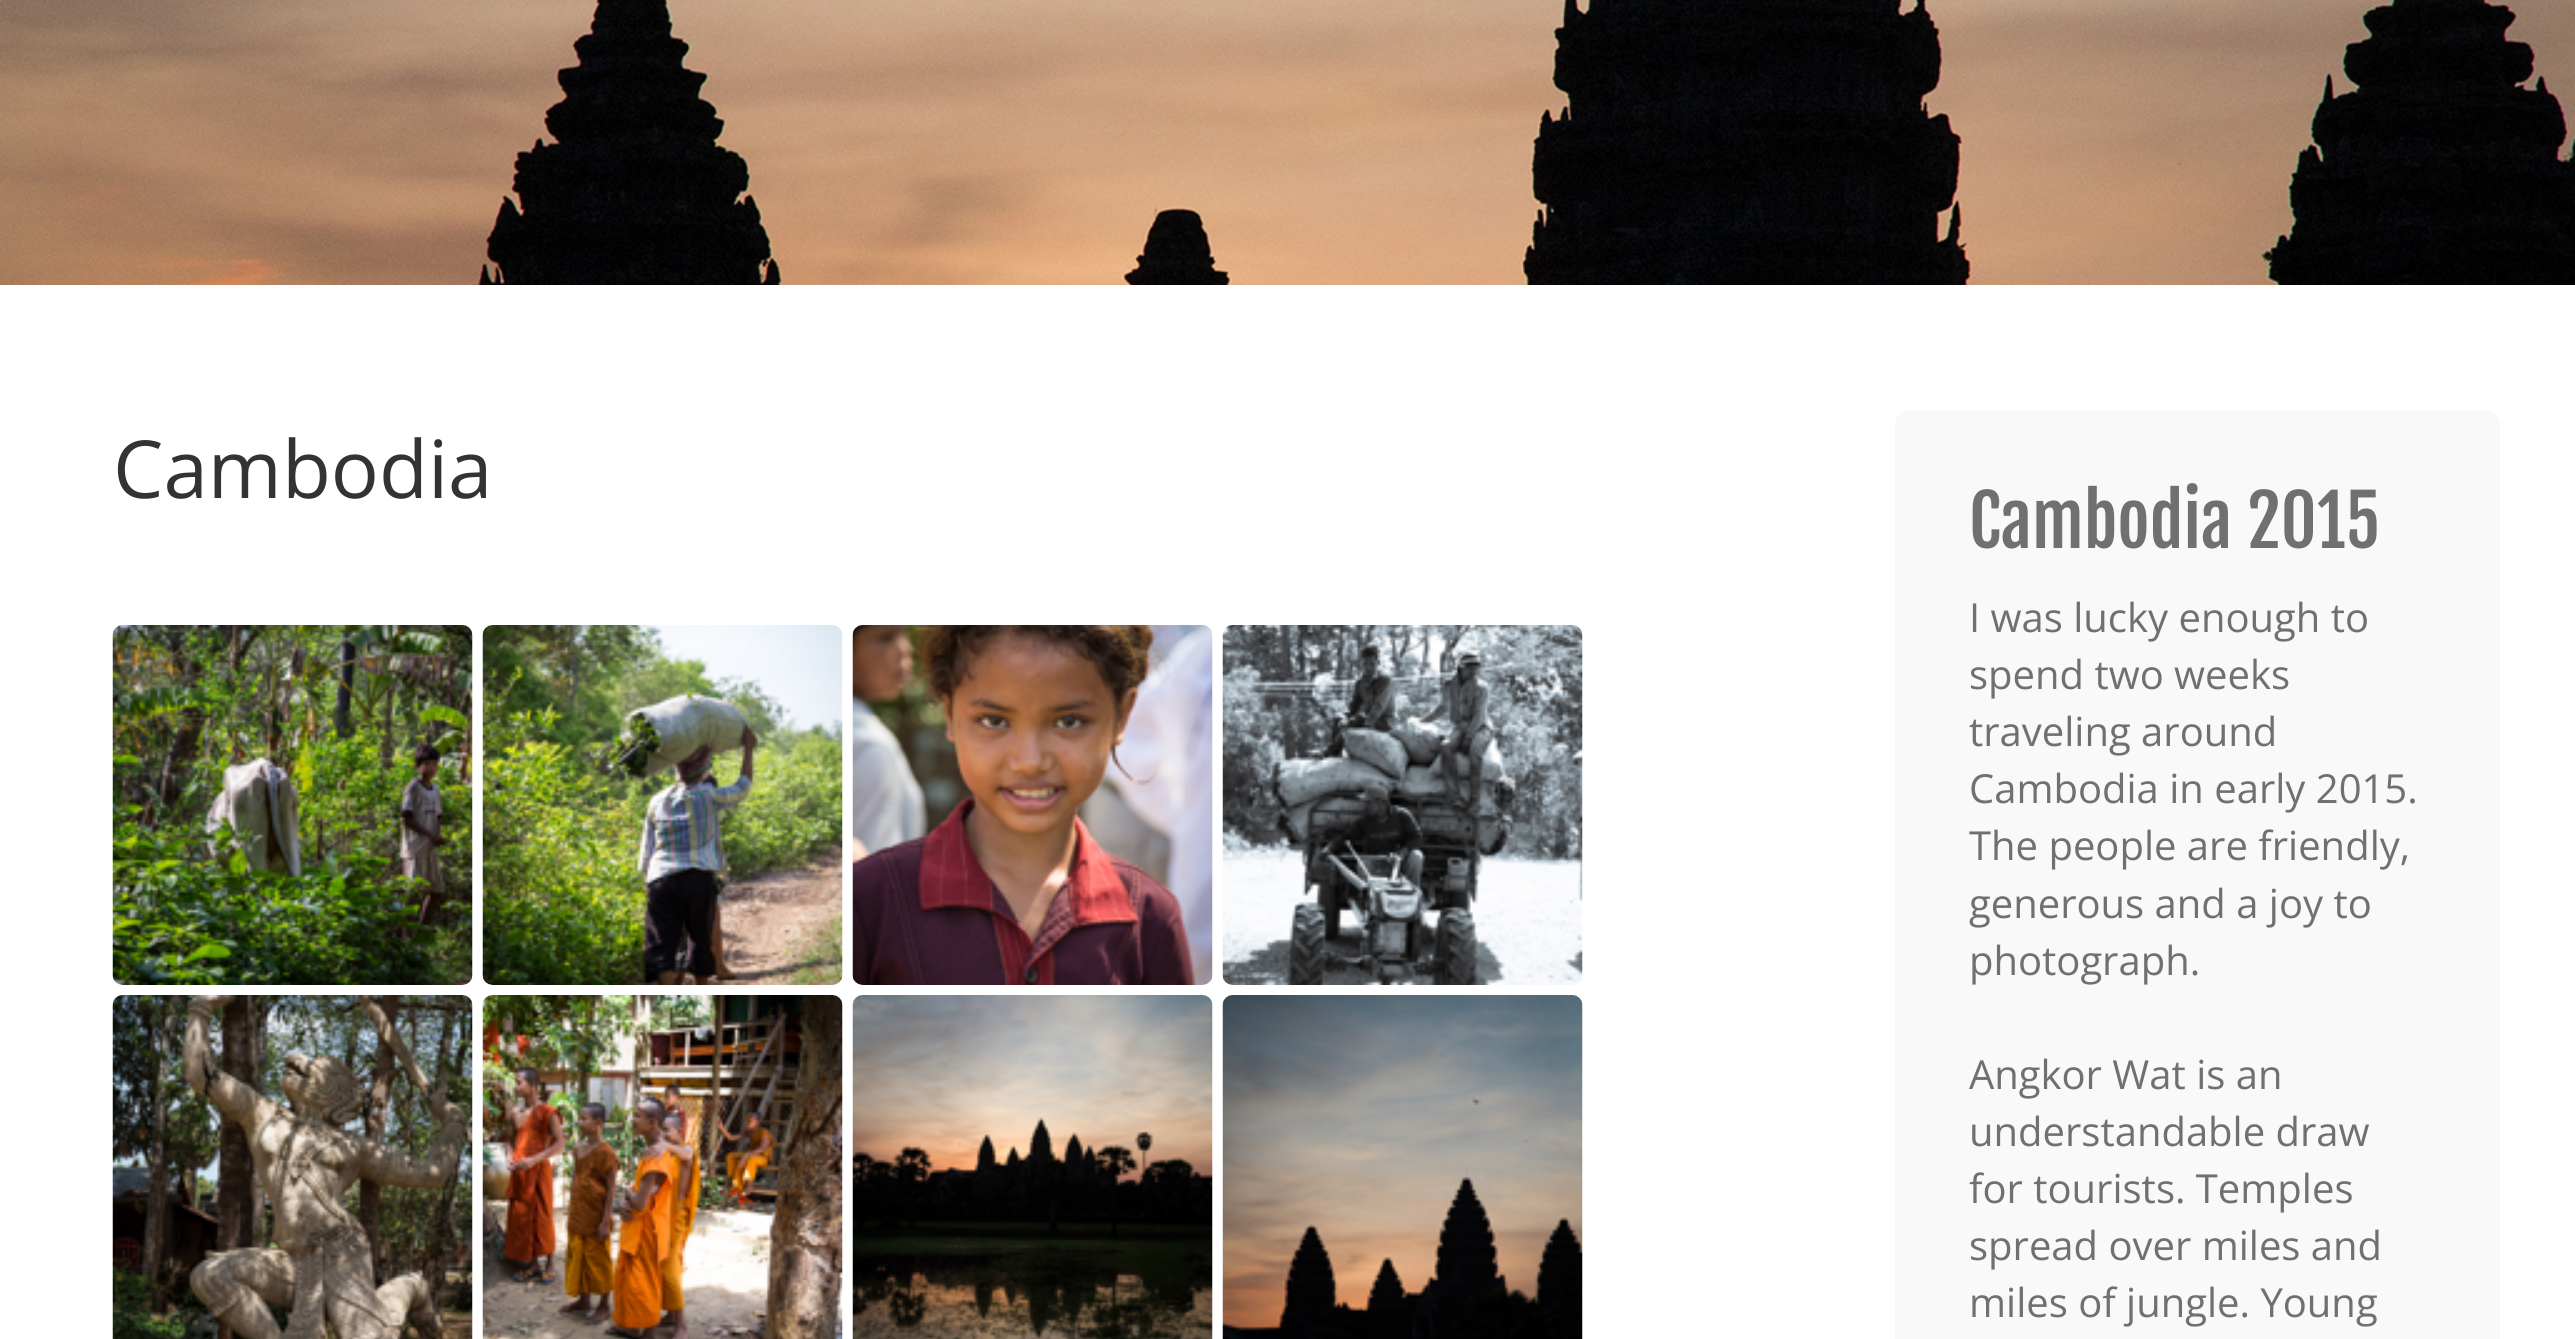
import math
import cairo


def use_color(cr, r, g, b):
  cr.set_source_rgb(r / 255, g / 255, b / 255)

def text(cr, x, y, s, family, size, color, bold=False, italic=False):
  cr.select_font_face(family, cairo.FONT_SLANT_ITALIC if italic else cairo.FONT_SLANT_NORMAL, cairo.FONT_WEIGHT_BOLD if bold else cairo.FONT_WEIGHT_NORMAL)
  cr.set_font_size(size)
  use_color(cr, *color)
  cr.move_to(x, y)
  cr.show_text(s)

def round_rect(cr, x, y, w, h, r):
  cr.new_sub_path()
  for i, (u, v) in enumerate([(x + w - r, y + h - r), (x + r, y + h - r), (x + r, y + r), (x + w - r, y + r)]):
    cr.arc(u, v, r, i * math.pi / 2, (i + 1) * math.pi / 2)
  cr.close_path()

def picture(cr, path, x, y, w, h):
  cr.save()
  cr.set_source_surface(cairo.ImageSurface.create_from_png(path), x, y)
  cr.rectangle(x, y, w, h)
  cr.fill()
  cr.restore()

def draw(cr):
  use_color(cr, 255, 255, 255)
  cr.paint()
  picture(cr, "img_01.png", 0, 0, 2575, 285)
  picture(cr, "img_02.png", 112, 625, 361, 360)
  picture(cr, "img_03.png", 482, 625, 361, 360)
  picture(cr, "img_04.png", 852, 625, 361, 360)
  picture(cr, "img_05.png", 1222, 625, 361, 360)
  picture(cr, "img_06.png", 112, 995, 361, 344)
  picture(cr, "img_07.png", 482, 995, 361, 344)
  picture(cr, "img_08.png", 852, 995, 361, 344)
  picture(cr, "img_09.png", 1222, 995, 361, 344)
  use_color(cr, 249, 249, 249)
  round_rect(cr, 1895, 410, 605, 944, 15)
  cr.fill()
  text(cr, 113, 498, "Cambodia", "Open Sans", 80, (51, 51, 51))
  text(cr, 1969, 548, "Cambodia 2015", "Fjalla One", 70, (112, 112, 112))
  text(cr, 1969, 632, "I was lucky enough to", "Open Sans", 40, (112, 112, 112))
  text(cr, 1969, 689, "spend two weeks", "Open Sans", 40, (112, 112, 112))
  text(cr, 1969, 746, "traveling around", "Open Sans", 40, (112, 112, 112))
  text(cr, 1969, 803, "Cambodia in early 2015.", "Open Sans", 40, (112, 112, 112))
  text(cr, 1969, 860, "The people are friendly,", "Open Sans", 40, (112, 112, 112))
  text(cr, 1969, 918, "generous and a joy to", "Open Sans", 40, (112, 112, 112))
  text(cr, 1969, 975, "photograph.", "Open Sans", 40, (112, 112, 112))
  text(cr, 1969, 1089, "Angkor Wat is an", "Open Sans", 40, (112, 112, 112))
  text(cr, 1969, 1146, "understandable draw", "Open Sans", 40, (112, 112, 112))
  text(cr, 1969, 1203, "for tourists. Temples", "Open Sans", 40, (112, 112, 112))
  text(cr, 1969, 1260, "spread over miles and", "Open Sans", 40, (112, 112, 112))
  text(cr, 1969, 1317, "miles of jungle. Young", "Open Sans", 40, (112, 112, 112))


surface = cairo.ImageSurface(cairo.FORMAT_RGB24, 2575, 1339)
cr = cairo.Context(surface)
options = cairo.FontOptions()
options.set_hint_metrics(cairo.HINT_METRICS_OFF)
options.set_hint_style(cairo.HINT_STYLE_NONE)
cr.set_font_options(options)
cr.set_miter_limit(4)
draw(cr)
surface.write_to_png("out.png")
